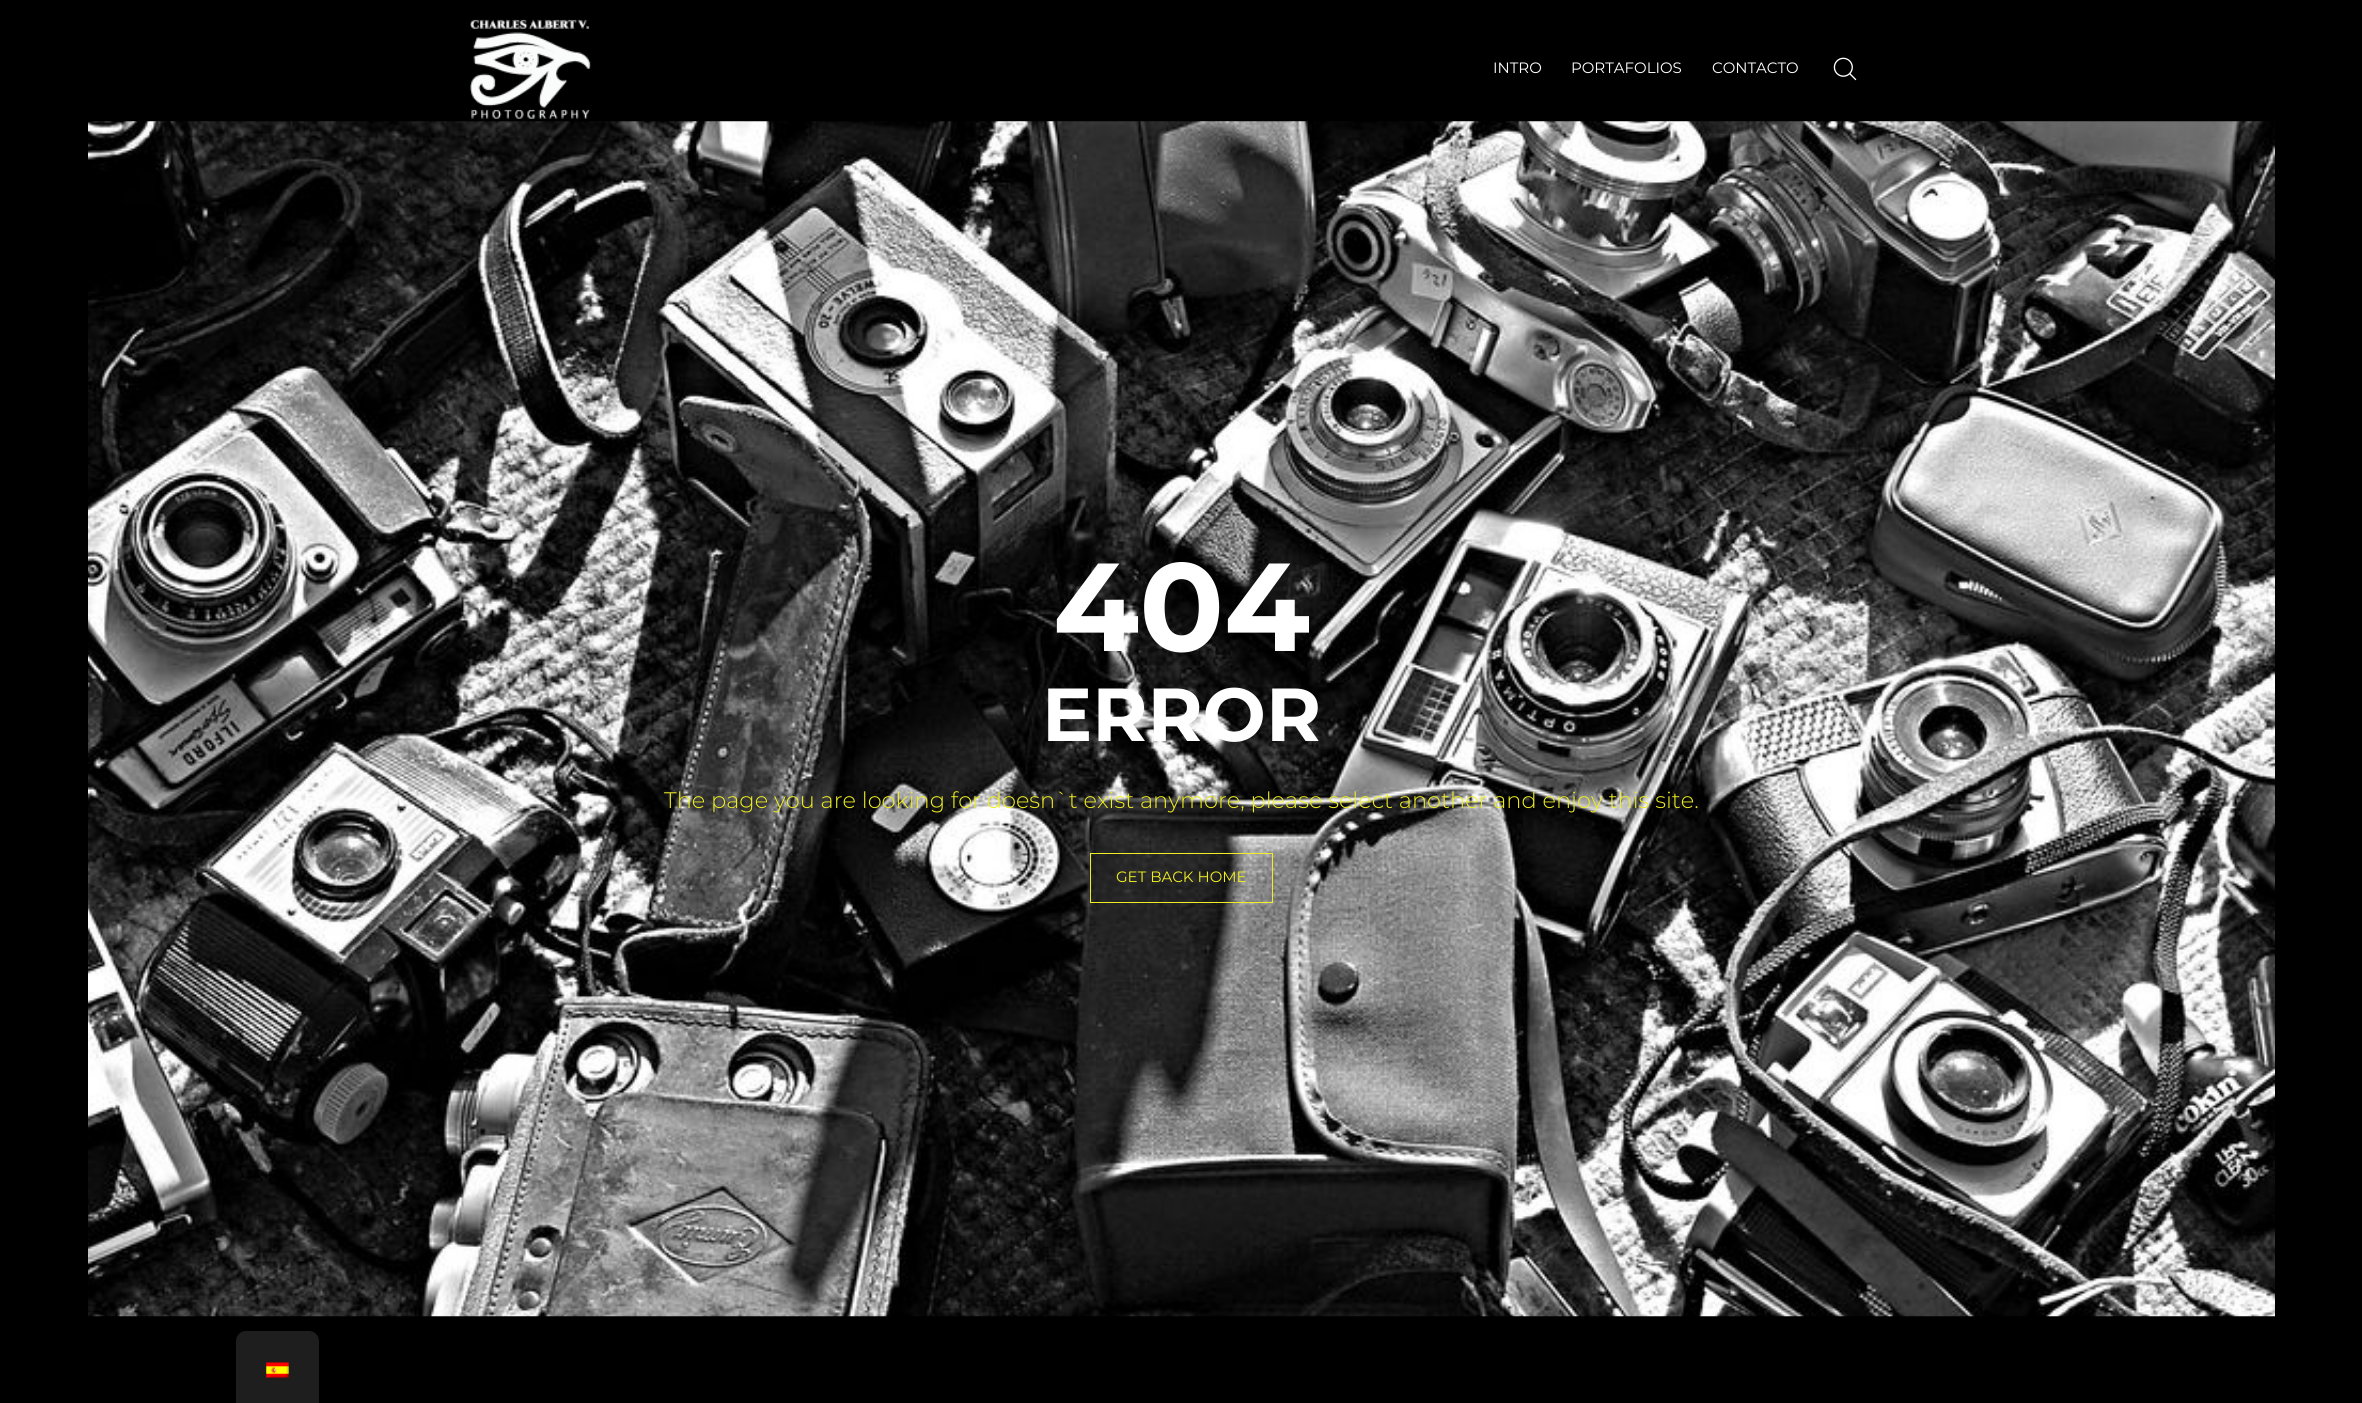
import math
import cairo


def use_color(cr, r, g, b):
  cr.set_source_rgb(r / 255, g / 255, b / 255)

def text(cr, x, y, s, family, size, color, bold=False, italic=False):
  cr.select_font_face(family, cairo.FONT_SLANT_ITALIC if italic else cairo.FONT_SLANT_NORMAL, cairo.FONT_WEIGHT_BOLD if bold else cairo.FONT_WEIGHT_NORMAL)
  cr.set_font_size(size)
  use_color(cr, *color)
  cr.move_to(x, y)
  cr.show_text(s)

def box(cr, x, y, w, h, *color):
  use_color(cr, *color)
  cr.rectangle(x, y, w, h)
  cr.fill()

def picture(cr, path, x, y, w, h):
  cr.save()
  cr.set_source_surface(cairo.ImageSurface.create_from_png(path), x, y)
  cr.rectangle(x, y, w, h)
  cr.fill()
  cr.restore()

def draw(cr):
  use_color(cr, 0, 0, 0)
  cr.paint()
  picture(cr, "img_01.png", 470, 19, 121, 100)
  picture(cr, "img_02.png", 1833, 57, 24, 24)
  picture(cr, "img_03.png", 87, 121, 2188, 1196)
  box(cr, 87, 122, 1, 1194, 0, 0, 0)
  cr.rectangle(1090.5, 853.5, 182, 49)
  use_color(cr, 238, 238, 34)
  cr.set_line_width(1)
  cr.stroke()
  use_color(cr, 30, 30, 30)
  cr.new_path()
  cr.move_to(246, 1331)
  cr.line_to(309, 1331)
  cr.curve_to(314.5, 1331, 319, 1335.5, 319, 1341)
  cr.line_to(319, 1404)
  cr.line_to(236, 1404)
  cr.line_to(236, 1341)
  cr.curve_to(236, 1335.5, 240.5, 1331, 246, 1331)
  cr.close_path()
  cr.fill()
  picture(cr, "img_04.png", 266, 1362, 23, 16)
  text(cr, 1493, 73, "INTRO", "Montserrat", 15, (255, 255, 255))
  text(cr, 1571, 73, "PORTAFOLIOS", "Montserrat", 15, (255, 255, 255))
  text(cr, 1712, 73, "CONTACTO", "Montserrat", 15, (255, 255, 255))
  text(cr, 1053, 651, "404", "Montserrat", 125, (255, 255, 255), bold=True)
  text(cr, 1042, 741, "ERROR", "Montserrat", 75, (255, 255, 255), bold=True)
  text(cr, 664, 808, "The page you are looking for doesn`t exist anymore, please select another and enjoy this site.", "Montserrat Light", 22.5, (238, 238, 34))
  text(cr, 1116, 882, "GET BACK HOME", "Montserrat", 15, (238, 238, 34))


surface = cairo.ImageSurface(cairo.FORMAT_RGB24, 2362, 1403)
cr = cairo.Context(surface)
options = cairo.FontOptions()
options.set_hint_metrics(cairo.HINT_METRICS_OFF)
options.set_hint_style(cairo.HINT_STYLE_NONE)
cr.set_font_options(options)
cr.set_miter_limit(4)
draw(cr)
surface.write_to_png("out.png")
